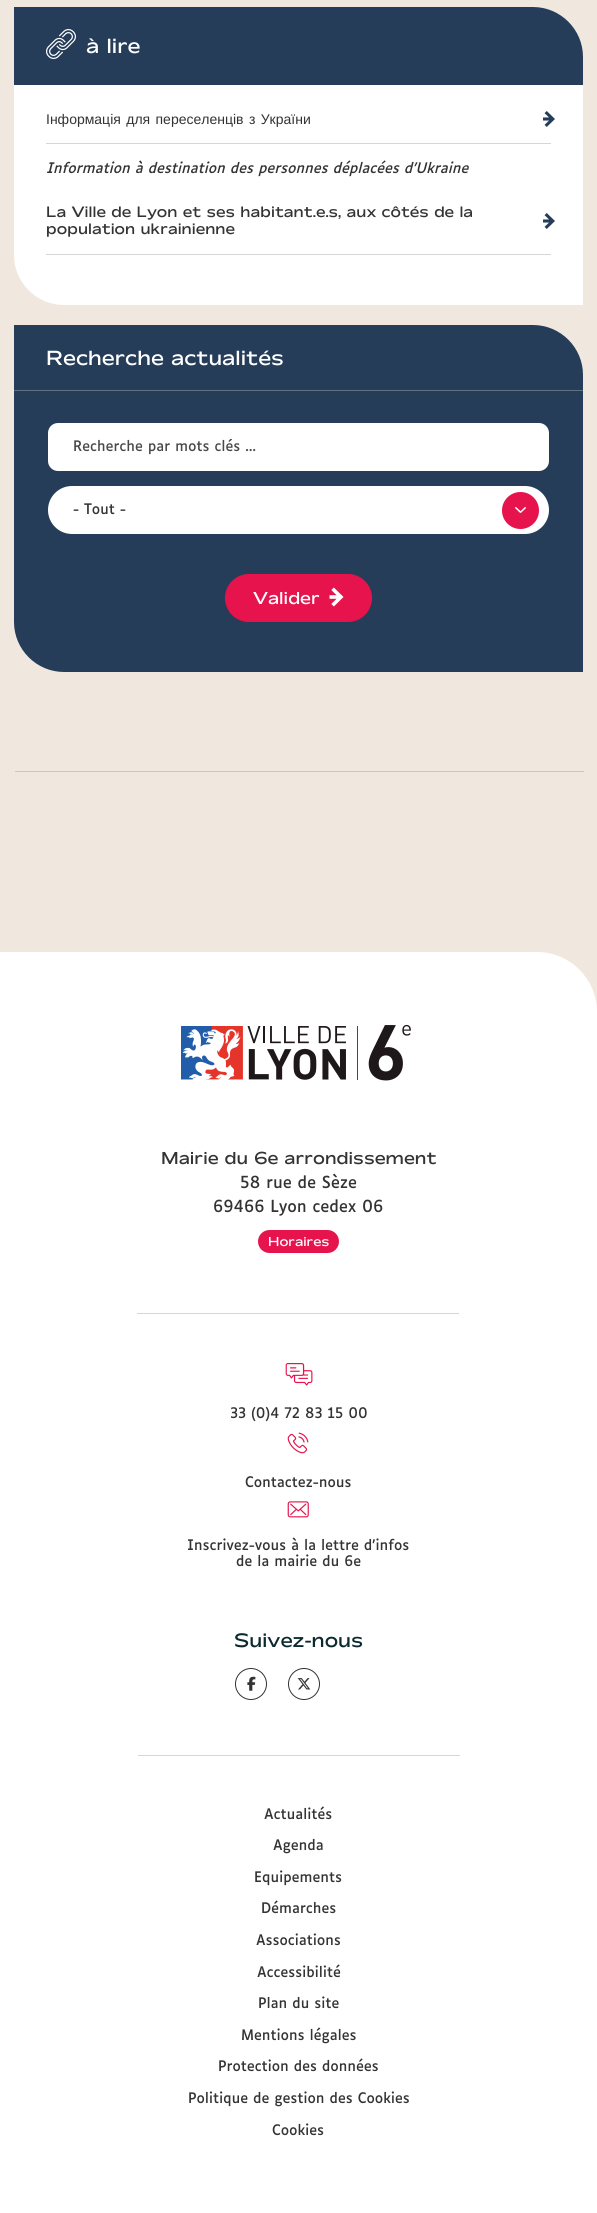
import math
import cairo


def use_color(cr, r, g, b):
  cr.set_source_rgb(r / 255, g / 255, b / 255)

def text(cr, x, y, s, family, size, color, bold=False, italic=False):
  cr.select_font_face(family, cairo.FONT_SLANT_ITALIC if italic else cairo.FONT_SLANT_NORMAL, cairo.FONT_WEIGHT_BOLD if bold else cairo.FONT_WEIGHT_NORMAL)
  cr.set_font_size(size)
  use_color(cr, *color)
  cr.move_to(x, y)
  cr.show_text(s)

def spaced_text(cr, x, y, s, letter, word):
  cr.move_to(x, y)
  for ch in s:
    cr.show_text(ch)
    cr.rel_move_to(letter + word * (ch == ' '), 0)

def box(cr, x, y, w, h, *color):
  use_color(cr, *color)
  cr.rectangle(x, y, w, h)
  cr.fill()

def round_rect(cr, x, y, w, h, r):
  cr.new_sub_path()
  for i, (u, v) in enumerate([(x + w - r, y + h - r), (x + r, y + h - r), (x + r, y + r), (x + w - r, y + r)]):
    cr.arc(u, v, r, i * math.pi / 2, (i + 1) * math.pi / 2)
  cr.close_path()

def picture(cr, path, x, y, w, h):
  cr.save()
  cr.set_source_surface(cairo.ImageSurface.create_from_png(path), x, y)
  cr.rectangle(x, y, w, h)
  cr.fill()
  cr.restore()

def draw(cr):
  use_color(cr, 240, 232, 222)
  cr.paint()
  use_color(cr, 37, 61, 88)
  cr.new_path()
  cr.move_to(14, 7)
  cr.line_to(533, 7)
  cr.curve_to(560.5, 7, 583, 29.5, 583, 57)
  cr.line_to(583, 85)
  cr.line_to(14, 85)
  cr.close_path()
  cr.fill()
  picture(cr, "img_01.png", 46, 29, 30, 30)
  use_color(cr, 255, 255, 255)
  cr.new_path()
  cr.move_to(14, 85)
  cr.line_to(583, 85)
  cr.line_to(583, 305)
  cr.line_to(64, 305)
  cr.curve_to(36.5, 305, 14, 282.5, 14, 255)
  cr.close_path()
  cr.fill()
  box(cr, 46, 143, 505, 1, 214, 214, 214)
  picture(cr, "img_02.png", 543, 111, 12, 16)
  picture(cr, "img_03.png", 47, 160, 422, 17)
  box(cr, 46, 254, 505, 1, 214, 214, 214)
  picture(cr, "img_02.png", 543, 213, 12, 16)
  use_color(cr, 37, 61, 88)
  cr.new_path()
  cr.move_to(14, 325)
  cr.line_to(533, 325)
  cr.curve_to(560.5, 325, 583, 347.5, 583, 375)
  cr.line_to(583, 391)
  cr.line_to(14, 391)
  cr.close_path()
  cr.fill()
  box(cr, 14, 390, 569, 1, 98, 112, 128)
  use_color(cr, 37, 61, 88)
  cr.new_path()
  cr.move_to(14, 391)
  cr.line_to(583, 391)
  cr.line_to(583, 672)
  cr.line_to(64, 672)
  cr.curve_to(36.5, 672, 14, 649.5, 14, 622)
  cr.close_path()
  cr.fill()
  use_color(cr, 255, 255, 255)
  round_rect(cr, 48, 423, 501, 48, 10)
  cr.fill()
  picture(cr, "img_04.png", 74, 439, 182, 16)
  round_rect(cr, 48, 486, 501, 48, 24)
  cr.fill()
  picture(cr, "img_05.png", 73, 503, 53, 12)
  use_color(cr, 230, 19, 77)
  cr.arc(520.5, 510.5, 18.5, 0, 2 * math.pi)
  cr.fill()
  picture(cr, "img_06.png", 515, 507, 11, 6)
  round_rect(cr, 225.5, 574.5, 146, 47, 23.5)
  cr.fill_preserve()
  cr.set_line_width(1)
  cr.stroke()
  picture(cr, "img_07.png", 329, 587, 15, 20)
  box(cr, 15, 771, 569, 1, 199, 199, 199)
  use_color(cr, 255, 255, 255)
  cr.new_path()
  cr.move_to(0, 952)
  cr.line_to(537, 952)
  cr.curve_to(570, 952, 597, 979, 597, 1012)
  cr.line_to(597, 2213)
  cr.line_to(0, 2213)
  cr.close_path()
  cr.fill()
  picture(cr, "img_08.png", 181, 1024, 230, 57)
  picture(cr, "img_09.png", 241, 1173, 116, 16)
  picture(cr, "img_10.png", 214, 1199, 169, 17)
  use_color(cr, 230, 19, 77)
  round_rect(cr, 258, 1230, 81, 23, 11.5)
  cr.fill()
  box(cr, 137, 1313, 322, 1, 214, 214, 214)
  picture(cr, "img_11.png", 285, 1363, 28, 23)
  picture(cr, "img_12.png", 231, 1406, 136, 16)
  picture(cr, "img_13.png", 287, 1432, 22, 22)
  picture(cr, "img_14.png", 245, 1476, 106, 12)
  picture(cr, "img_15.png", 287, 1501, 22, 17)
  picture(cr, "img_16.png", 188, 1537, 221, 14)
  picture(cr, "img_17.png", 236, 1554, 125, 13)
  cr.arc(251, 1684, 15.5, 0, 2 * math.pi)
  use_color(cr, 51, 51, 51)
  cr.stroke()
  picture(cr, "img_18.png", 247, 1676, 9, 15)
  cr.arc(304, 1684, 15.5, 0, 2 * math.pi)
  cr.stroke()
  picture(cr, "img_19.png", 297, 1678, 14, 12)
  box(cr, 138, 1755, 322, 1, 214, 214, 214)
  picture(cr, "img_20.png", 264, 1806, 68, 14)
  picture(cr, "img_21.png", 273, 1838, 50, 16)
  picture(cr, "img_22.png", 255, 1870, 87, 16)
  picture(cr, "img_23.png", 262, 1900, 74, 14)
  picture(cr, "img_24.png", 256, 1933, 84, 13)
  picture(cr, "img_25.png", 257, 1964, 84, 14)
  picture(cr, "img_26.png", 259, 1996, 80, 13)
  picture(cr, "img_27.png", 242, 2027, 114, 17)
  picture(cr, "img_28.png", 219, 2058, 159, 14)
  picture(cr, "img_29.png", 189, 2091, 220, 16)
  picture(cr, "img_30.png", 272, 2123, 52, 13)
  text(cr, 86, 53, "à lire", "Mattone", 19, (255, 255, 255))
  cr.select_font_face("Liberation Sans")
  cr.set_font_size(14)
  use_color(cr, 51, 51, 51)
  spaced_text(cr, 46, 124, "Інформація для переселенців з України", 0, 1.5)
  text(cr, 46, 217, "La Ville de Lyon et ses habitant.e.s, aux côtés de la", "Mattone", 14, (51, 51, 51))
  text(cr, 46, 234, "population ukrainienne", "Mattone", 14, (51, 51, 51))
  text(cr, 46, 365, "Recherche actualités", "Mattone", 19, (255, 255, 255))
  text(cr, 253, 604, "Valider", "Mattone", 16, (255, 255, 255))
  text(cr, 161, 1164, "Mairie du 6e arrondissement", "Mattone", 16, (51, 51, 51))
  text(cr, 268, 1246, "Horaires", "Mattone", 12, (255, 255, 255))
  text(cr, 234, 1647, "Suivez-nous", "Mattone", 18, (12, 41, 47))


surface = cairo.ImageSurface(cairo.FORMAT_RGB24, 597, 2213)
cr = cairo.Context(surface)
options = cairo.FontOptions()
options.set_hint_metrics(cairo.HINT_METRICS_OFF)
options.set_hint_style(cairo.HINT_STYLE_NONE)
cr.set_font_options(options)
cr.set_miter_limit(4)
draw(cr)
surface.write_to_png("out.png")
